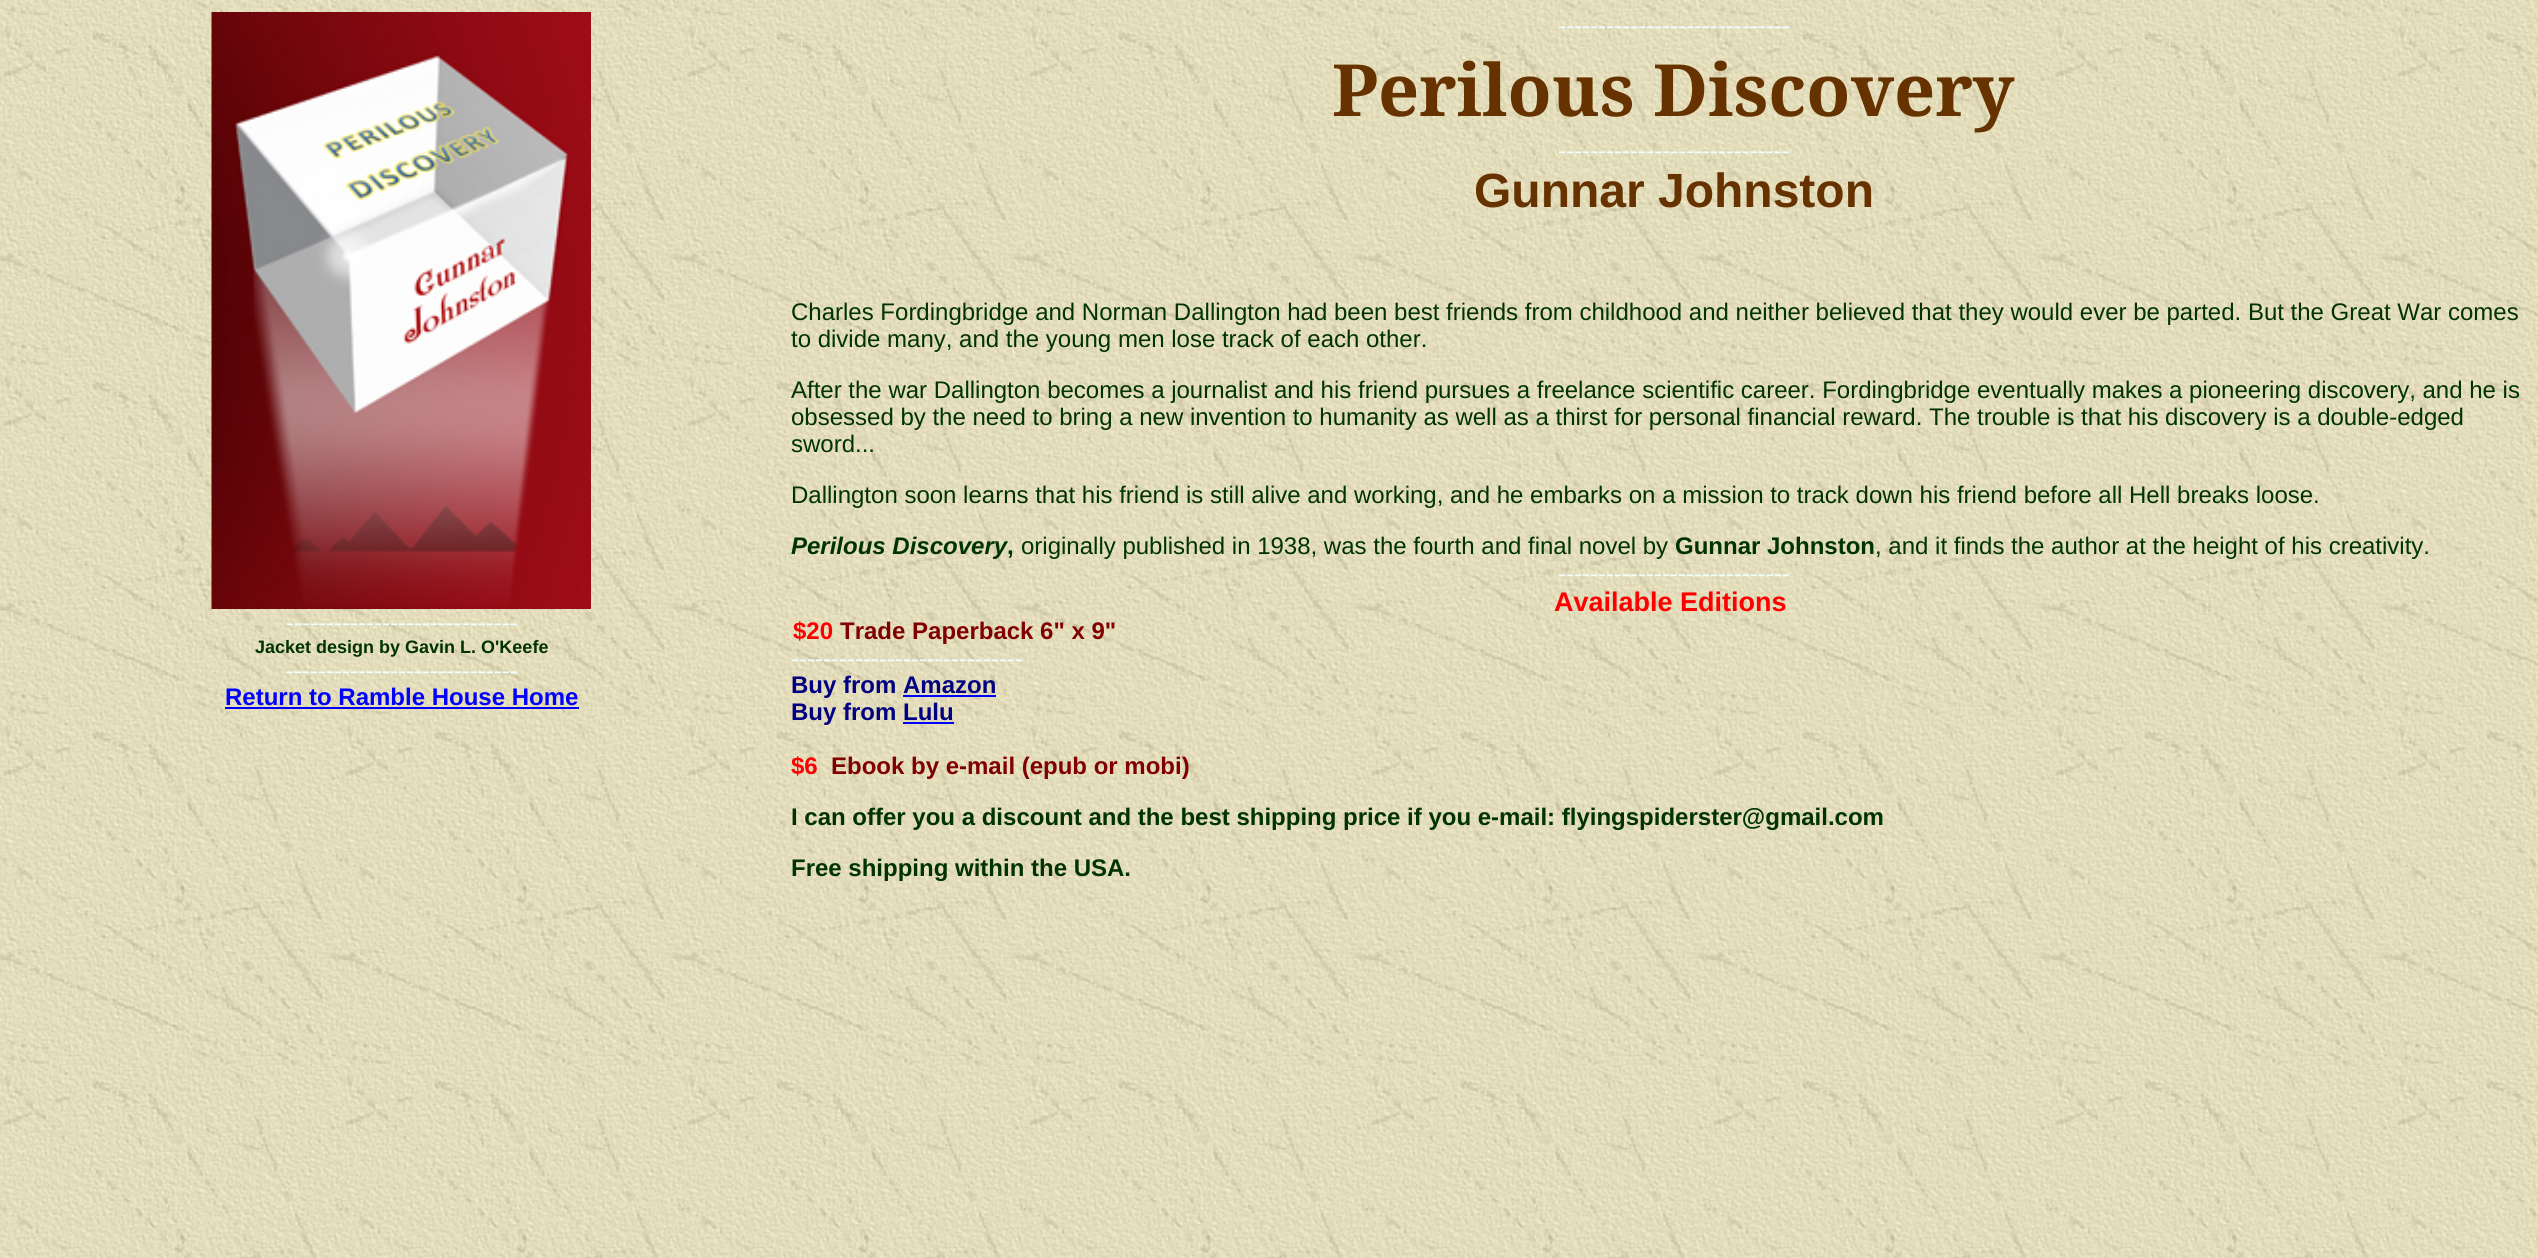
import math
import cairo


def use_color(cr, r, g, b):
  cr.set_source_rgb(r / 255, g / 255, b / 255)

def text(cr, x, y, s, family, size, color, bold=False, italic=False):
  cr.select_font_face(family, cairo.FONT_SLANT_ITALIC if italic else cairo.FONT_SLANT_NORMAL, cairo.FONT_WEIGHT_BOLD if bold else cairo.FONT_WEIGHT_NORMAL)
  cr.set_font_size(size)
  use_color(cr, *color)
  cr.move_to(x, y)
  cr.show_text(s)

def box(cr, x, y, w, h, *color):
  use_color(cr, *color)
  cr.rectangle(x, y, w, h)
  cr.fill()

def picture(cr, path, x, y, w, h):
  cr.save()
  cr.set_source_surface(cairo.ImageSurface.create_from_png(path), x, y)
  cr.rectangle(x, y, w, h)
  cr.fill()
  cr.restore()

def draw(cr):
  use_color(cr, 255, 255, 255)
  cr.paint()
  picture(cr, "img_01.png", 0, 0, 2538, 1258)
  picture(cr, "img_02.png", 211, 12, 380, 597)
  box(cr, 225, 707, 354, 2, 0, 0, 255)
  text(cr, 286, 630, "-----------------------------", "Liberation Serif", 24, (240, 255, 255))
  text(cr, 255, 653, "Jacket design by Gavin L. O'Keefe", "Liberation Sans", 18, (0, 51, 0), bold=True)
  text(cr, 286, 678, "-----------------------------", "Liberation Serif", 24, (240, 255, 255))
  text(cr, 225, 705, "Return to Ramble House Home", "Liberation Sans", 24, (0, 0, 255), bold=True)
  text(cr, 1558, 33, "-----------------------------", "Liberation Serif", 24, (240, 255, 255))
  text(cr, 1332, 116, "Perilous Discovery", "Noto Serif", 72, (102, 51, 0), bold=True)
  text(cr, 1558, 158, "-----------------------------", "Liberation Serif", 24, (240, 255, 255))
  text(cr, 1474, 207, "Gunnar Johnston", "Liberation Sans", 48, (102, 51, 0), bold=True)
  text(cr, 791, 320, "Charles Fordingbridge and Norman Dallington had been best friends from childhood and neither believed that they would ever be parted. But the Great War comes", "Liberation Sans", 24, (0, 51, 0))
  text(cr, 791, 347, "to divide many, and the young men lose track of each other.", "Liberation Sans", 24, (0, 51, 0))
  text(cr, 791, 398, "After the war Dallington becomes a journalist and his friend pursues a freelance scientific career. Fordingbridge eventually makes a pioneering discovery, and he is", "Liberation Sans", 24, (0, 51, 0))
  text(cr, 791, 425, "obsessed by the need to bring a new invention to humanity as well as a thirst for personal financial reward. The trouble is that his discovery is a double-edged", "Liberation Sans", 24, (0, 51, 0))
  text(cr, 791, 452, "sword...", "Liberation Sans", 24, (0, 51, 0))
  text(cr, 791, 503, "Dallington soon learns that his friend is still alive and working, and he embarks on a mission to track down his friend before all Hell breaks loose.", "Liberation Sans", 24, (0, 51, 0))
  text(cr, 791, 554, "Perilous Discovery", "Liberation Sans", 24, (0, 51, 0), bold=True, italic=True)
  text(cr, 1007, 554, ",", "Liberation Sans", 24, (0, 51, 0), bold=True)
  text(cr, 1021, 554, "originally published in 1938, was the fourth and final novel by", "Liberation Sans", 24, (0, 51, 0))
  text(cr, 1675, 554, "Gunnar Johnston", "Liberation Sans", 24, (0, 51, 0), bold=True)
  text(cr, 1875, 554, ", and it finds the author at the height of his creativity.", "Liberation Sans", 24, (0, 51, 0))
  text(cr, 1558, 581, "-----------------------------", "Liberation Serif", 24, (240, 255, 255))
  text(cr, 1554, 611, "Available Editions", "Liberation Sans", 27, (255, 0, 0), bold=True)
  text(cr, 793, 639, "$20", "Liberation Sans", 24, (255, 0, 0), bold=True)
  text(cr, 840, 639, "Trade Paperback 6\" x 9\"", "Liberation Sans", 24, (128, 0, 0), bold=True)
  text(cr, 791, 666, "-----------------------------", "Liberation Serif", 24, (240, 255, 255))
  text(cr, 791, 693, "Buy from Amazon", "Liberation Sans", 24, (0, 0, 128), bold=True)
  box(cr, 903, 695, 93, 2, 0, 0, 255)
  text(cr, 791, 720, "Buy from Lulu", "Liberation Sans", 24, (0, 0, 128), bold=True)
  box(cr, 903, 722, 51, 2, 0, 0, 255)
  text(cr, 791, 774, "$6", "Liberation Sans", 24, (255, 0, 0), bold=True)
  text(cr, 831, 774, "Ebook by e-mail (epub or mobi)", "Liberation Sans", 24, (128, 0, 0), bold=True)
  text(cr, 791, 825, "I can offer you a discount and the best shipping price if you e-mail: flyingspiderster@gmail.com", "Liberation Sans", 24, (0, 51, 0), bold=True)
  text(cr, 791, 876, "Free shipping within the USA.", "Liberation Sans", 24, (0, 51, 0), bold=True)


surface = cairo.ImageSurface(cairo.FORMAT_RGB24, 2538, 1258)
cr = cairo.Context(surface)
options = cairo.FontOptions()
options.set_hint_metrics(cairo.HINT_METRICS_OFF)
options.set_hint_style(cairo.HINT_STYLE_NONE)
cr.set_font_options(options)
cr.set_miter_limit(4)
draw(cr)
surface.write_to_png("out.png")
